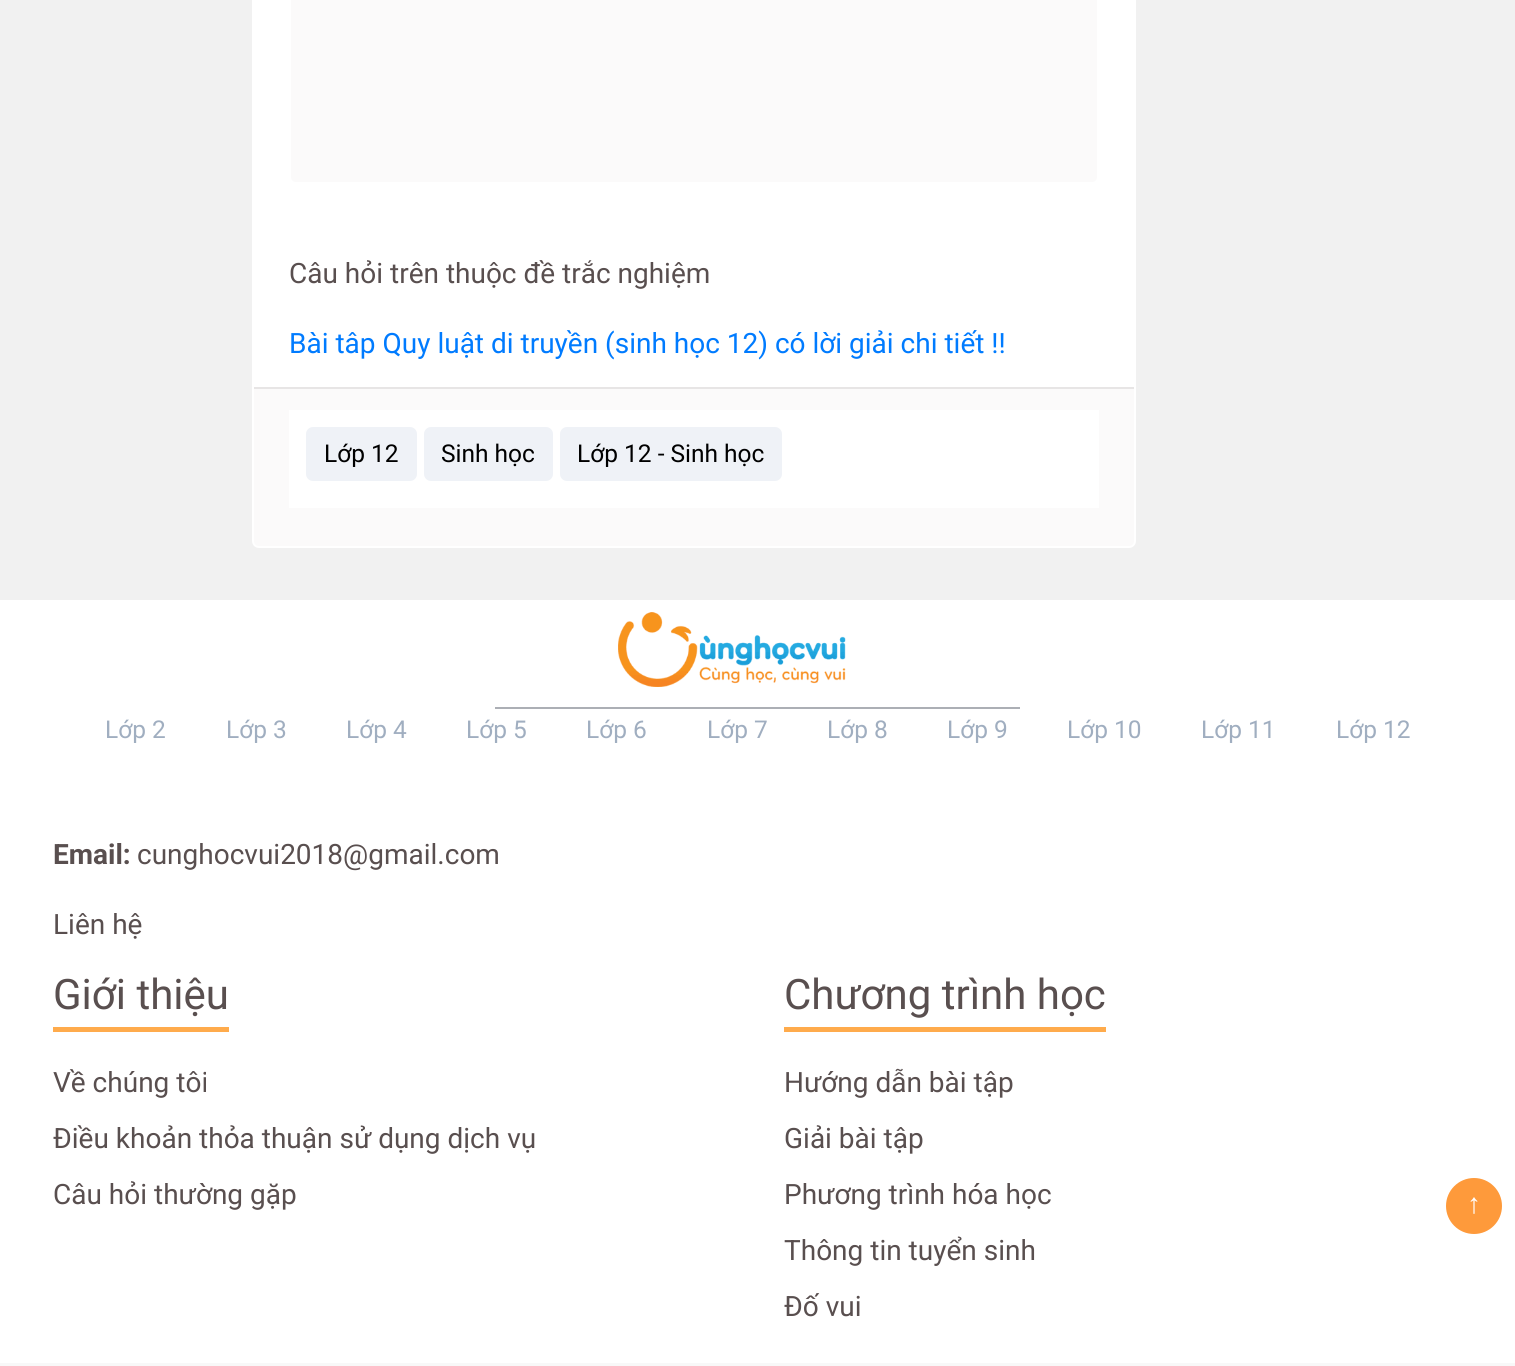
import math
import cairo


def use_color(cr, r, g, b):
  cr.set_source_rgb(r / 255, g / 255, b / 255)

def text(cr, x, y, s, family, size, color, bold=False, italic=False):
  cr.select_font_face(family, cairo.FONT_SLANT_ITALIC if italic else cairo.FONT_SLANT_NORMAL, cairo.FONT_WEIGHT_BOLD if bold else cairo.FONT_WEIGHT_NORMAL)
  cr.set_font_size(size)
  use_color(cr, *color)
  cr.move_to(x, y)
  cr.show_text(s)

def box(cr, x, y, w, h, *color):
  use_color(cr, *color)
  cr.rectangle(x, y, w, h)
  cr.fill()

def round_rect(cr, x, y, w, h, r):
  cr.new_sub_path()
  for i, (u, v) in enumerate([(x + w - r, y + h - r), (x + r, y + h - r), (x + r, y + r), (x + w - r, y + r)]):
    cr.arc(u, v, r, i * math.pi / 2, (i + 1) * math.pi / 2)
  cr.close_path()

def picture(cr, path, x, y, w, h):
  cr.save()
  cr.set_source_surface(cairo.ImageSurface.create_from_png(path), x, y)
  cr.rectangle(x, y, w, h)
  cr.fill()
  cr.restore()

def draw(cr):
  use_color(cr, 241, 241, 241)
  cr.paint()
  use_color(cr, 255, 255, 255)
  round_rect(cr, 252, -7, 884, 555, 7)
  cr.fill()
  use_color(cr, 251, 250, 250)
  cr.new_path()
  cr.move_to(291, -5)
  cr.line_to(1097, -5)
  cr.line_to(1097, 177)
  cr.curve_to(1097, 180, 1095, 182, 1092, 182)
  cr.line_to(296, 182)
  cr.curve_to(293, 182, 291, 180, 291, 177)
  cr.close_path()
  cr.fill()
  cr.new_path()
  cr.move_to(254, 387)
  cr.line_to(1134, 387)
  cr.line_to(1134, 541)
  cr.curve_to(1134, 544, 1132, 546, 1129, 546)
  cr.line_to(259, 546)
  cr.curve_to(256, 546, 254, 544, 254, 541)
  cr.close_path()
  cr.fill()
  box(cr, 254, 387, 880, 2, 231, 229, 229)
  box(cr, 289, 410, 810, 98, 255, 255, 255)
  use_color(cr, 239, 242, 247)
  round_rect(cr, 306, 427, 111, 54, 7)
  cr.fill()
  round_rect(cr, 424, 427, 129, 54, 7)
  cr.fill()
  round_rect(cr, 560, 427, 222, 54, 7)
  cr.fill()
  box(cr, 0, 600, 1515, 763, 255, 255, 255)
  picture(cr, "img_01.png", 618, 612, 228, 75)
  box(cr, 495, 707, 525, 2, 172, 175, 181)
  box(cr, 53, 1027, 176, 5, 255, 171, 76)
  box(cr, 784, 1027, 322, 5, 255, 171, 76)
  box(cr, 0, 1363, 1515, 3, 248, 248, 248)
  use_color(cr, 254, 154, 59)
  cr.arc(1474, 1206, 28, 0, 2 * math.pi)
  cr.fill()
  text(cr, 289, 283, "Câu hỏi trên thuộc đề trắc nghiệm", "Roboto", 28, (89, 79, 79))
  text(cr, 289, 353, "Bài tâp Quy luật di truyền (sinh học 12) có lời giải chi tiết !!", "Roboto", 28, (0, 123, 255))
  text(cr, 324, 462, "Lớp 12", "Roboto", 24.5, (0, 0, 0))
  text(cr, 441, 462, "Sinh học", "Roboto", 24.5, (0, 0, 0))
  text(cr, 577, 462, "Lớp 12 - Sinh học", "Roboto", 24.5, (0, 0, 0))
  text(cr, 105, 738, "Lớp 2", "Roboto", 24.5, (160, 174, 192))
  text(cr, 226, 738, "Lớp 3", "Roboto", 24.5, (160, 174, 192))
  text(cr, 346, 738, "Lớp 4", "Roboto", 24.5, (160, 174, 192))
  text(cr, 466, 738, "Lớp 5", "Roboto", 24.5, (160, 174, 192))
  text(cr, 586, 738, "Lớp 6", "Roboto", 24.5, (160, 174, 192))
  text(cr, 707, 738, "Lớp 7", "Roboto", 24.5, (160, 174, 192))
  text(cr, 827, 738, "Lớp 8", "Roboto", 24.5, (160, 174, 192))
  text(cr, 947, 738, "Lớp 9", "Roboto", 24.5, (160, 174, 192))
  text(cr, 1067, 738, "Lớp 10", "Roboto", 24.5, (160, 174, 192))
  text(cr, 1201, 738, "Lớp 11", "Roboto", 24.5, (160, 174, 192))
  text(cr, 1336, 738, "Lớp 12", "Roboto", 24.5, (160, 174, 192))
  text(cr, 53, 864, "Email:", "Roboto", 28, (89, 79, 79), bold=True)
  text(cr, 137, 864, "cunghocvui2018@gmail.com", "Roboto", 28, (89, 79, 79))
  text(cr, 53, 934, "Liên hệ", "Roboto", 28, (89, 79, 79))
  text(cr, 53, 1009, "Giới thiệu", "Roboto", 42, (89, 79, 79))
  text(cr, 53, 1092, "Về chúng tôi", "Roboto", 28, (89, 79, 79))
  text(cr, 53, 1148, "Điều khoản thỏa thuận sử dụng dịch vụ", "Roboto", 28, (89, 79, 79))
  text(cr, 53, 1204, "Câu hỏi thường gặp", "Roboto", 28, (89, 79, 79))
  text(cr, 784, 1009, "Chương trình học", "Roboto", 42, (89, 79, 79))
  text(cr, 784, 1092, "Hướng dẫn bài tập", "Roboto", 28, (89, 79, 79))
  text(cr, 784, 1148, "Giải bài tập", "Roboto", 28, (89, 79, 79))
  text(cr, 784, 1204, "Phương trình hóa học", "Roboto", 28, (89, 79, 79))
  text(cr, 784, 1260, "Thông tin tuyển sinh", "Roboto", 28, (89, 79, 79))
  text(cr, 784, 1316, "Đố vui", "Roboto", 28, (89, 79, 79))
  text(cr, 1467, 1213, "↑", "Liberation Sans", 28, (255, 255, 255))


surface = cairo.ImageSurface(cairo.FORMAT_RGB24, 1515, 1366)
cr = cairo.Context(surface)
options = cairo.FontOptions()
options.set_hint_metrics(cairo.HINT_METRICS_OFF)
options.set_hint_style(cairo.HINT_STYLE_NONE)
cr.set_font_options(options)
cr.set_miter_limit(4)
draw(cr)
surface.write_to_png("out.png")
